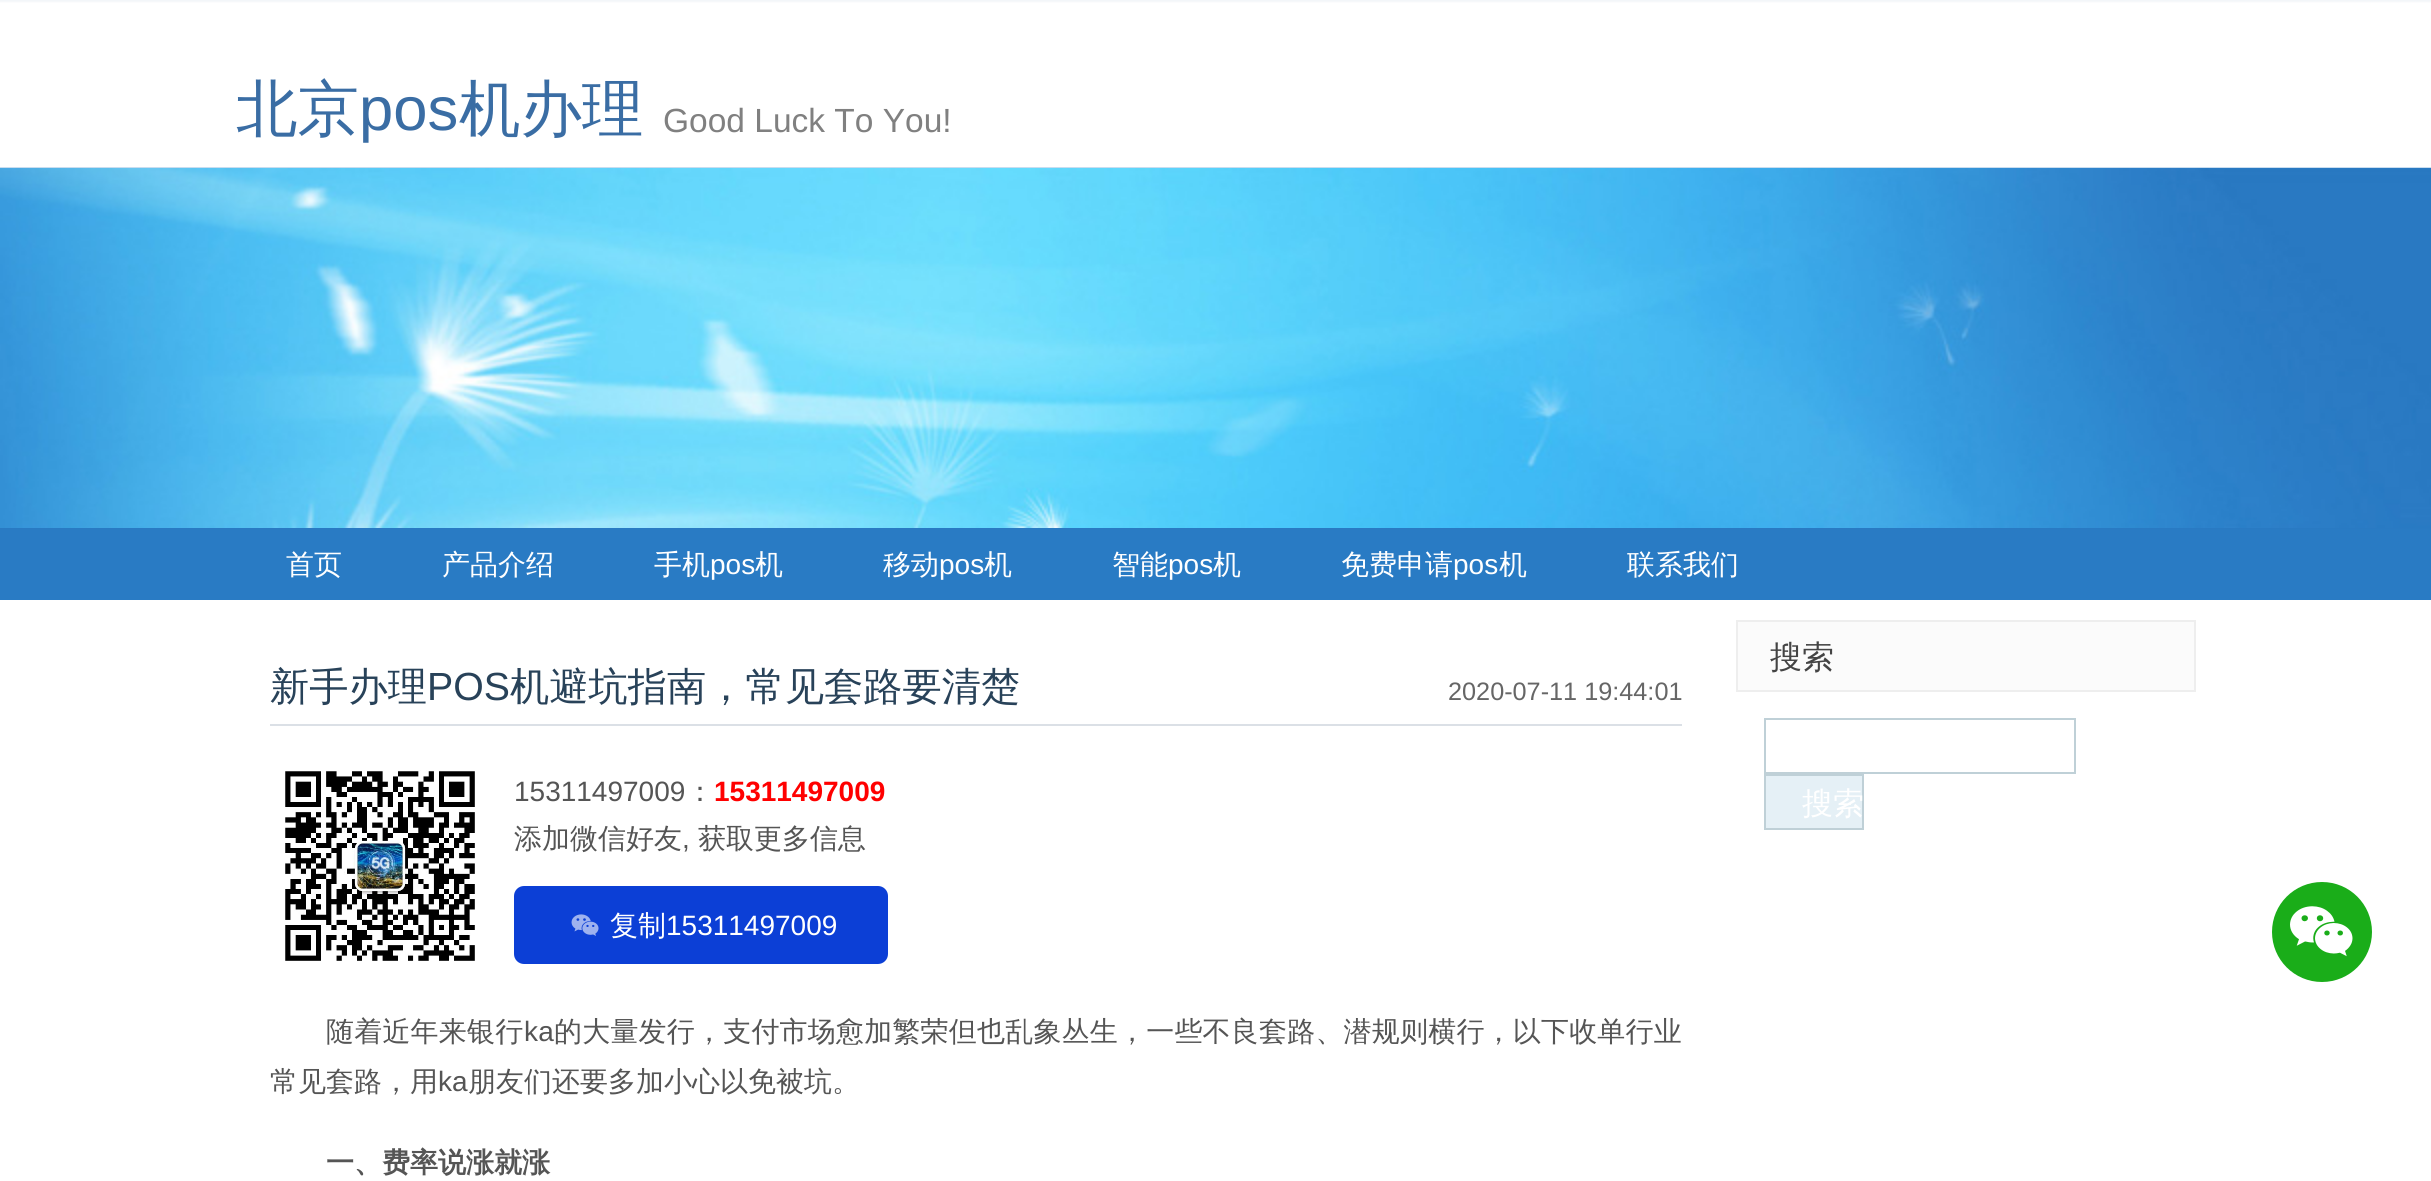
import math
import cairo


def use_color(cr, r, g, b):
  cr.set_source_rgb(r / 255, g / 255, b / 255)

def text(cr, x, y, s, family, size, color, bold=False, italic=False):
  cr.select_font_face(family, cairo.FONT_SLANT_ITALIC if italic else cairo.FONT_SLANT_NORMAL, cairo.FONT_WEIGHT_BOLD if bold else cairo.FONT_WEIGHT_NORMAL)
  cr.set_font_size(size)
  use_color(cr, *color)
  cr.move_to(x, y)
  cr.show_text(s)

def spaced_text(cr, x, y, s, letter, word):
  cr.move_to(x, y)
  for ch in s:
    cr.show_text(ch)
    cr.rel_move_to(letter + word * (ch == ' '), 0)

def box(cr, x, y, w, h, *color):
  use_color(cr, *color)
  cr.rectangle(x, y, w, h)
  cr.fill()

def round_rect(cr, x, y, w, h, r):
  cr.new_sub_path()
  for i, (u, v) in enumerate([(x + w - r, y + h - r), (x + r, y + h - r), (x + r, y + r), (x + w - r, y + r)]):
    cr.arc(u, v, r, i * math.pi / 2, (i + 1) * math.pi / 2)
  cr.close_path()

def picture(cr, path, x, y, w, h):
  cr.save()
  cr.set_source_surface(cairo.ImageSurface.create_from_png(path), x, y)
  cr.rectangle(x, y, w, h)
  cr.fill()
  cr.restore()

def draw(cr):
  use_color(cr, 255, 255, 255)
  cr.paint()
  picture(cr, "img_01.png", 0, 0, 2431, 600)
  picture(cr, "img_02.png", 0, 168, 2431, 360)
  box(cr, 270, 724, 1412, 2, 219, 224, 230)
  picture(cr, "img_03.png", 285, 770, 190, 191)
  use_color(cr, 12, 63, 214)
  round_rect(cr, 514, 886, 374, 78, 10)
  cr.fill()
  picture(cr, "img_04.png", 571, 914, 28, 22)
  use_color(cr, 251, 251, 251)
  cr.rectangle(1737, 621, 458, 70)
  cr.fill_preserve()
  use_color(cr, 238, 238, 238)
  cr.stroke()
  cr.rectangle(1765, 719, 310, 54)
  use_color(cr, 191, 208, 215)
  cr.stroke()
  use_color(cr, 229, 240, 246)
  cr.rectangle(1765, 775, 98, 54)
  cr.fill_preserve()
  use_color(cr, 191, 208, 215)
  cr.stroke()
  use_color(cr, 26, 173, 25)
  cr.arc(2322, 932, 50, 0, 2 * math.pi)
  cr.fill()
  picture(cr, "img_05.png", 2290, 906, 63, 51)
  text(cr, 236, 130, "北京", "WenQuanYi Zen Hei Medium", 61.5, (58, 109, 164))
  text(cr, 359, 130, "pos", "Liberation Sans", 61.5, (58, 109, 164))
  text(cr, 459, 130, "机办理", "WenQuanYi Zen Hei Medium", 61.5, (58, 109, 164))
  text(cr, 663, 132, "Good Luck To You!", "Liberation Sans", 33.5, (128, 128, 128))
  text(cr, 286, 574, "首页", "WenQuanYi Zen Hei Medium", 28, (255, 255, 255))
  text(cr, 442, 574, "产品介绍", "WenQuanYi Zen Hei Medium", 28, (255, 255, 255))
  text(cr, 654, 574, "手机", "WenQuanYi Zen Hei Medium", 28, (255, 255, 255))
  text(cr, 710, 574, "pos", "Liberation Sans", 28, (255, 255, 255))
  text(cr, 755, 574, "机", "WenQuanYi Zen Hei Medium", 28, (255, 255, 255))
  text(cr, 883, 574, "移动", "WenQuanYi Zen Hei Medium", 28, (255, 255, 255))
  text(cr, 939, 574, "pos", "Liberation Sans", 28, (255, 255, 255))
  text(cr, 984, 574, "机", "WenQuanYi Zen Hei Medium", 28, (255, 255, 255))
  text(cr, 1112, 574, "智能", "WenQuanYi Zen Hei Medium", 28, (255, 255, 255))
  text(cr, 1168, 574, "pos", "Liberation Sans", 28, (255, 255, 255))
  text(cr, 1213, 574, "机", "WenQuanYi Zen Hei Medium", 28, (255, 255, 255))
  text(cr, 1341, 574, "免费申请", "WenQuanYi Zen Hei Medium", 28, (255, 255, 255))
  text(cr, 1453, 574, "pos", "Liberation Sans", 28, (255, 255, 255))
  text(cr, 1499, 574, "机", "WenQuanYi Zen Hei Medium", 28, (255, 255, 255))
  text(cr, 1627, 574, "联系我们", "WenQuanYi Zen Hei Medium", 28, (255, 255, 255))
  text(cr, 270, 700, "新手办理", "WenQuanYi Zen Hei Medium", 39.25, (40, 66, 89))
  text(cr, 427, 700, "POS", "Liberation Sans", 39.25, (40, 66, 89))
  text(cr, 510, 700, "机避坑指南，常见套路要清楚", "WenQuanYi Zen Hei Medium", 39.25, (40, 66, 89))
  text(cr, 1448, 700, "2020-07-11 19:44:01", "Liberation Sans", 25.25, (102, 102, 102))
  text(cr, 514, 801, "15311497009", "Liberation Sans", 28, (85, 85, 85))
  text(cr, 686, 801, "：", "WenQuanYi Zen Hei Medium", 28, (85, 85, 85))
  text(cr, 714, 801, "15311497009", "Liberation Sans", 28, (255, 0, 0), bold=True)
  text(cr, 514, 848, "添加微信好友", "WenQuanYi Zen Hei Medium", 28, (85, 85, 85))
  text(cr, 682, 848, ",", "Liberation Sans", 28, (85, 85, 85))
  text(cr, 698, 848, "获取更多信息", "WenQuanYi Zen Hei Medium", 28, (85, 85, 85))
  text(cr, 610, 935, "复制", "WenQuanYi Zen Hei Medium", 28, (255, 255, 255))
  text(cr, 666, 935, "15311497009", "Liberation Sans", 28, (255, 255, 255))
  cr.select_font_face("WenQuanYi Zen Hei Medium")
  use_color(cr, 85, 85, 85)
  spaced_text(cr, 326, 1041, "随着近年来银行", 0.2, 0)
  cr.select_font_face("Liberation Sans")
  spaced_text(cr, 524, 1041, "ka", 0.2, 0)
  cr.select_font_face("WenQuanYi Zen Hei Medium")
  spaced_text(cr, 554, 1041, "的大量发行，支付市场愈加繁荣但也乱象丛生，一些不良套路、潜规则横行，以下收单行业", 0.2, 0)
  text(cr, 270, 1091, "常见套路，用", "WenQuanYi Zen Hei Medium", 28, (85, 85, 85))
  text(cr, 438, 1091, "ka", "Liberation Sans", 28, (85, 85, 85))
  text(cr, 468, 1091, "朋友们还要多加小心以免被坑。", "WenQuanYi Zen Hei Medium", 28, (85, 85, 85))
  text(cr, 326, 1172, "一、费率说涨就涨", "WenQuanYi Zen Hei", 28, (85, 85, 85), bold=True)
  text(cr, 1770, 668, "搜索", "WenQuanYi Zen Hei Medium", 32, (68, 68, 68))
  text(cr, 1802, 814, "搜索", "WenQuanYi Zen Hei Medium", 31, (255, 255, 255))


surface = cairo.ImageSurface(cairo.FORMAT_RGB24, 2431, 1181)
cr = cairo.Context(surface)
options = cairo.FontOptions()
options.set_hint_metrics(cairo.HINT_METRICS_OFF)
options.set_hint_style(cairo.HINT_STYLE_NONE)
cr.set_font_options(options)
cr.set_miter_limit(4)
draw(cr)
surface.write_to_png("out.png")
